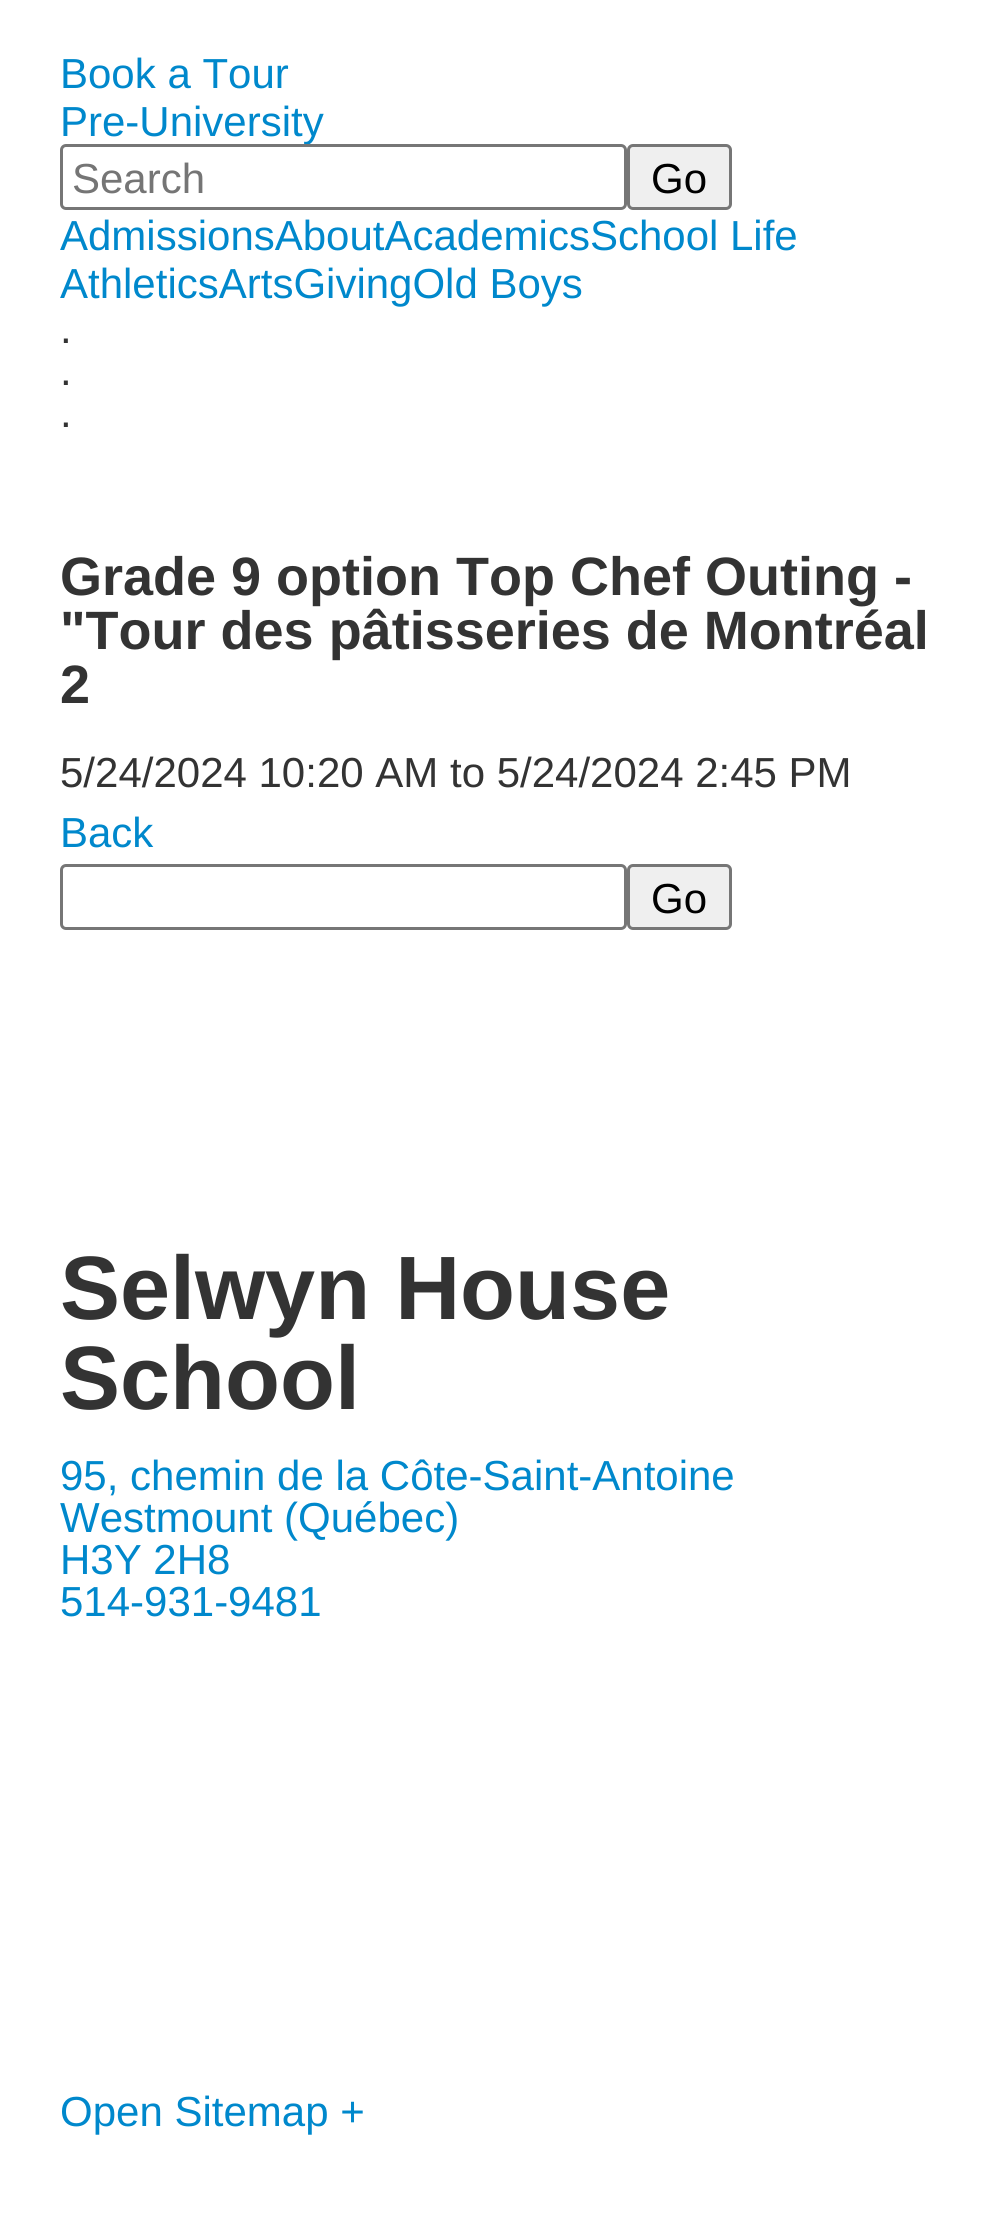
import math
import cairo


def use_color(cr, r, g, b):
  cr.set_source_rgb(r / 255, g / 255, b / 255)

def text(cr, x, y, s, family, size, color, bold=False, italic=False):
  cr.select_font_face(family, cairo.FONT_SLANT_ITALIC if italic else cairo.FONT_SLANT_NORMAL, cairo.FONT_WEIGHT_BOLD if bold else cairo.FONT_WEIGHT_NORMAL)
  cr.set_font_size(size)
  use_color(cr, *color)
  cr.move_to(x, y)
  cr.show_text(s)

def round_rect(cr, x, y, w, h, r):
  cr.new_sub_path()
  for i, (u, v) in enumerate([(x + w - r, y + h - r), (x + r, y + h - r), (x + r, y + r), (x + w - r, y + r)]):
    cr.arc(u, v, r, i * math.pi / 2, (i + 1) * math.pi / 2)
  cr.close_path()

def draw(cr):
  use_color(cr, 255, 255, 255)
  cr.paint()
  use_color(cr, 239, 239, 239)
  round_rect(cr, 628.5, 145.5, 102, 63, 4.5)
  cr.fill_preserve()
  use_color(cr, 118, 118, 118)
  cr.set_line_width(3)
  cr.stroke()
  round_rect(cr, 61.5, 865.5, 564, 63, 4.5)
  cr.stroke()
  use_color(cr, 239, 239, 239)
  round_rect(cr, 628.5, 865.5, 102, 63, 4.5)
  cr.fill_preserve()
  use_color(cr, 118, 118, 118)
  cr.stroke()
  text(cr, 60, 88, "Book a Tour", "Liberation Sans", 42, (0, 136, 204))
  text(cr, 60, 136, "Pre-University", "Liberation Sans", 42, (0, 136, 204))
  use_color(cr, 255, 255, 255)
  round_rect(cr, 61.5, 145.5, 564, 63, 4.5)
  cr.fill_preserve()
  use_color(cr, 118, 118, 118)
  cr.stroke()
  text(cr, 72, 193, "Search", "Liberation Sans", 42, (117, 117, 117))
  text(cr, 651, 193, "Go", "Liberation Sans", 42, (0, 0, 0))
  text(cr, 60, 250, "AdmissionsAboutAcademicsSchool Life", "Liberation Sans", 42, (0, 136, 204))
  text(cr, 60, 298, "AthleticsArtsGivingOld Boys", "Liberation Sans", 42, (0, 136, 204))
  text(cr, 60, 343, ".", "Liberation Sans", 42, (51, 51, 51))
  text(cr, 60, 385, ".", "Liberation Sans", 42, (51, 51, 51))
  text(cr, 60, 427, ".", "Liberation Sans", 42, (51, 51, 51))
  text(cr, 60, 595, "Grade 9 option Top Chef Outing -", "Liberation Sans", 54, (51, 51, 51), bold=True)
  text(cr, 60, 649, "\"Tour des pâtisseries de Montréal", "Liberation Sans", 54, (51, 51, 51), bold=True)
  text(cr, 60, 703, "2", "Liberation Sans", 54, (51, 51, 51), bold=True)
  text(cr, 60, 787, "5/24/2024 10:20 AM to 5/24/2024 2:45 PM", "Liberation Sans", 42, (51, 51, 51))
  text(cr, 60, 847, "Back", "Liberation Sans", 42, (0, 136, 204))
  text(cr, 651, 913, "Go", "Liberation Sans", 42, (0, 0, 0))
  text(cr, 60, 1319, "Selwyn House", "Liberation Sans", 90, (51, 51, 51), bold=True)
  text(cr, 60, 1409, "School", "Liberation Sans", 90, (51, 51, 51), bold=True)
  text(cr, 60, 1490, "95, chemin de la Côte-Saint-Antoine", "Liberation Sans", 42, (0, 136, 204))
  text(cr, 60, 1532, "Westmount (Québec)", "Liberation Sans", 42, (0, 136, 204))
  text(cr, 60, 1574, "H3Y 2H8", "Liberation Sans", 42, (0, 136, 204))
  text(cr, 60, 1616, "514-931-9481", "Liberation Sans", 42, (0, 136, 204))
  text(cr, 60, 2126, "Open Sitemap +", "Liberation Sans", 42, (0, 136, 204))


surface = cairo.ImageSurface(cairo.FORMAT_RGB24, 1000, 2229)
cr = cairo.Context(surface)
options = cairo.FontOptions()
options.set_hint_metrics(cairo.HINT_METRICS_OFF)
options.set_hint_style(cairo.HINT_STYLE_NONE)
cr.set_font_options(options)
cr.set_miter_limit(4)
draw(cr)
surface.write_to_png("out.png")
